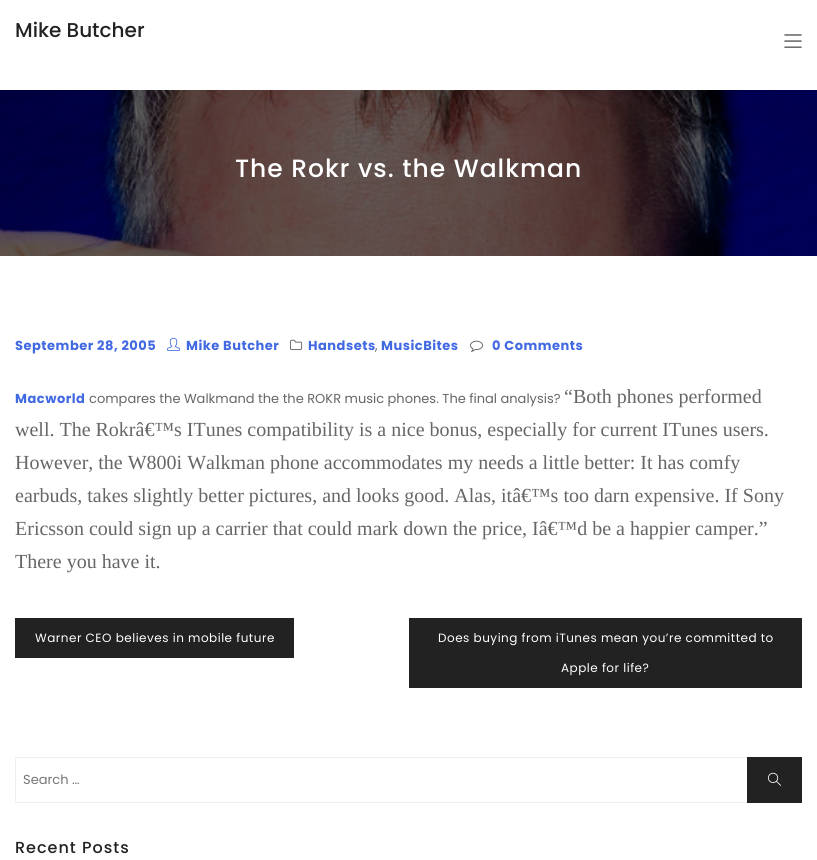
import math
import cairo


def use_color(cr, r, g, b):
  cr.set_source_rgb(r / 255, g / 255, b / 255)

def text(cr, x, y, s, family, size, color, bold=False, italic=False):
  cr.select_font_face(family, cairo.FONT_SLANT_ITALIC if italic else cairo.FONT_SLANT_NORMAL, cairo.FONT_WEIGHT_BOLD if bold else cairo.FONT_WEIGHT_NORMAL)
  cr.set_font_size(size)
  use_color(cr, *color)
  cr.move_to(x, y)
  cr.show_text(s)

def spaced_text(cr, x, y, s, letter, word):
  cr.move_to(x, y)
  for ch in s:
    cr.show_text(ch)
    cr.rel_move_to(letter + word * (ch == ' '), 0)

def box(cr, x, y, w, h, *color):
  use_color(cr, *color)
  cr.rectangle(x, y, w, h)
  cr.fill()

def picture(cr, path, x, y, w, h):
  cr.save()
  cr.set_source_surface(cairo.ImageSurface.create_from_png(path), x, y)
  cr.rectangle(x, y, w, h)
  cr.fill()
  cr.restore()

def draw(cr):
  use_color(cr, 255, 255, 255)
  cr.paint()
  picture(cr, "img_01.png", 784, 34, 18, 14)
  picture(cr, "img_02.png", 0, 90, 817, 166)
  picture(cr, "img_03.png", 167, 337, 13, 14)
  picture(cr, "img_04.png", 290, 339, 13, 11)
  picture(cr, "img_05.png", 470, 340, 13, 12)
  box(cr, 15, 618, 279, 40, 34, 34, 34)
  box(cr, 409, 618, 393, 70, 34, 34, 34)
  cr.rectangle(15.5, 757.5, 786, 45)
  use_color(cr, 238, 238, 238)
  cr.set_line_width(1)
  cr.stroke()
  box(cr, 747, 757, 55, 46, 34, 34, 34)
  picture(cr, "img_06.png", 768, 772, 13, 14)
  text(cr, 15, 37, "Mike Butcher", "Poppins Medium", 20, (34, 34, 34))
  cr.set_font_size(25)
  use_color(cr, 255, 255, 255)
  spaced_text(cr, 235, 177, "The Rokr vs. the Walkman", 1, 0)
  cr.select_font_face("Poppins", cairo.FONT_SLANT_NORMAL, cairo.FONT_WEIGHT_BOLD)
  cr.set_font_size(13)
  use_color(cr, 65, 105, 225)
  spaced_text(cr, 15, 350, "September 28, 2005", 0.5, 0)
  spaced_text(cr, 186, 350, "Mike Butcher", 0.5, 0)
  spaced_text(cr, 308, 350, "Handsets", 0.5, 0)
  text(cr, 375, 350, ",", "Poppins", 13, (102, 102, 102))
  cr.select_font_face("Poppins", cairo.FONT_SLANT_NORMAL, cairo.FONT_WEIGHT_BOLD)
  use_color(cr, 65, 105, 225)
  spaced_text(cr, 381, 350, "MusicBites", 0.5, 0)
  spaced_text(cr, 492, 350, "0 Comments", 0.5, 0)
  spaced_text(cr, 15, 403, "Macworld", 0.5, 0)
  text(cr, 89, 403, "compares the Walkmand the the ROKR music phones. The final analysis?", "Poppins", 13, (102, 102, 102))
  text(cr, 564, 403, "“Both phones performed", "Liberation Serif", 20, (102, 102, 102))
  text(cr, 15, 436, "well. The Rokrâ€™s ITunes compatibility is a nice bonus, especially for current ITunes users.", "Liberation Serif", 20, (102, 102, 102))
  text(cr, 15, 469, "However, the W800i Walkman phone accommodates my needs a little better: It has comfy", "Liberation Serif", 20, (102, 102, 102))
  text(cr, 15, 502, "earbuds, takes slightly better pictures, and looks good. Alas, itâ€™s too darn expensive. If Sony", "Liberation Serif", 20, (102, 102, 102))
  text(cr, 15, 535, "Ericsson could sign up a carrier that could mark down the price, Iâ€™d be a happier camper.”", "Liberation Serif", 20, (102, 102, 102))
  text(cr, 15, 568, "There you have it.", "Liberation Serif", 20, (102, 102, 102))
  cr.select_font_face("Poppins")
  cr.set_font_size(12)
  use_color(cr, 255, 255, 255)
  spaced_text(cr, 35, 642, "Warner CEO believes in mobile future", 0.5, 0)
  spaced_text(cr, 438, 642, "Does buying from iTunes mean you’re committed to", 0.5, 0)
  spaced_text(cr, 561, 672, "Apple for life?", 0.5, 0)
  text(cr, 23, 784, "Search …", "Poppins", 13, (117, 117, 117))
  cr.select_font_face("Poppins Medium")
  cr.set_font_size(16)
  use_color(cr, 34, 34, 34)
  spaced_text(cr, 15, 853, "Recent Posts", 1, 0)


surface = cairo.ImageSurface(cairo.FORMAT_RGB24, 817, 860)
cr = cairo.Context(surface)
options = cairo.FontOptions()
options.set_hint_metrics(cairo.HINT_METRICS_OFF)
options.set_hint_style(cairo.HINT_STYLE_NONE)
cr.set_font_options(options)
cr.set_miter_limit(4)
draw(cr)
surface.write_to_png("out.png")
